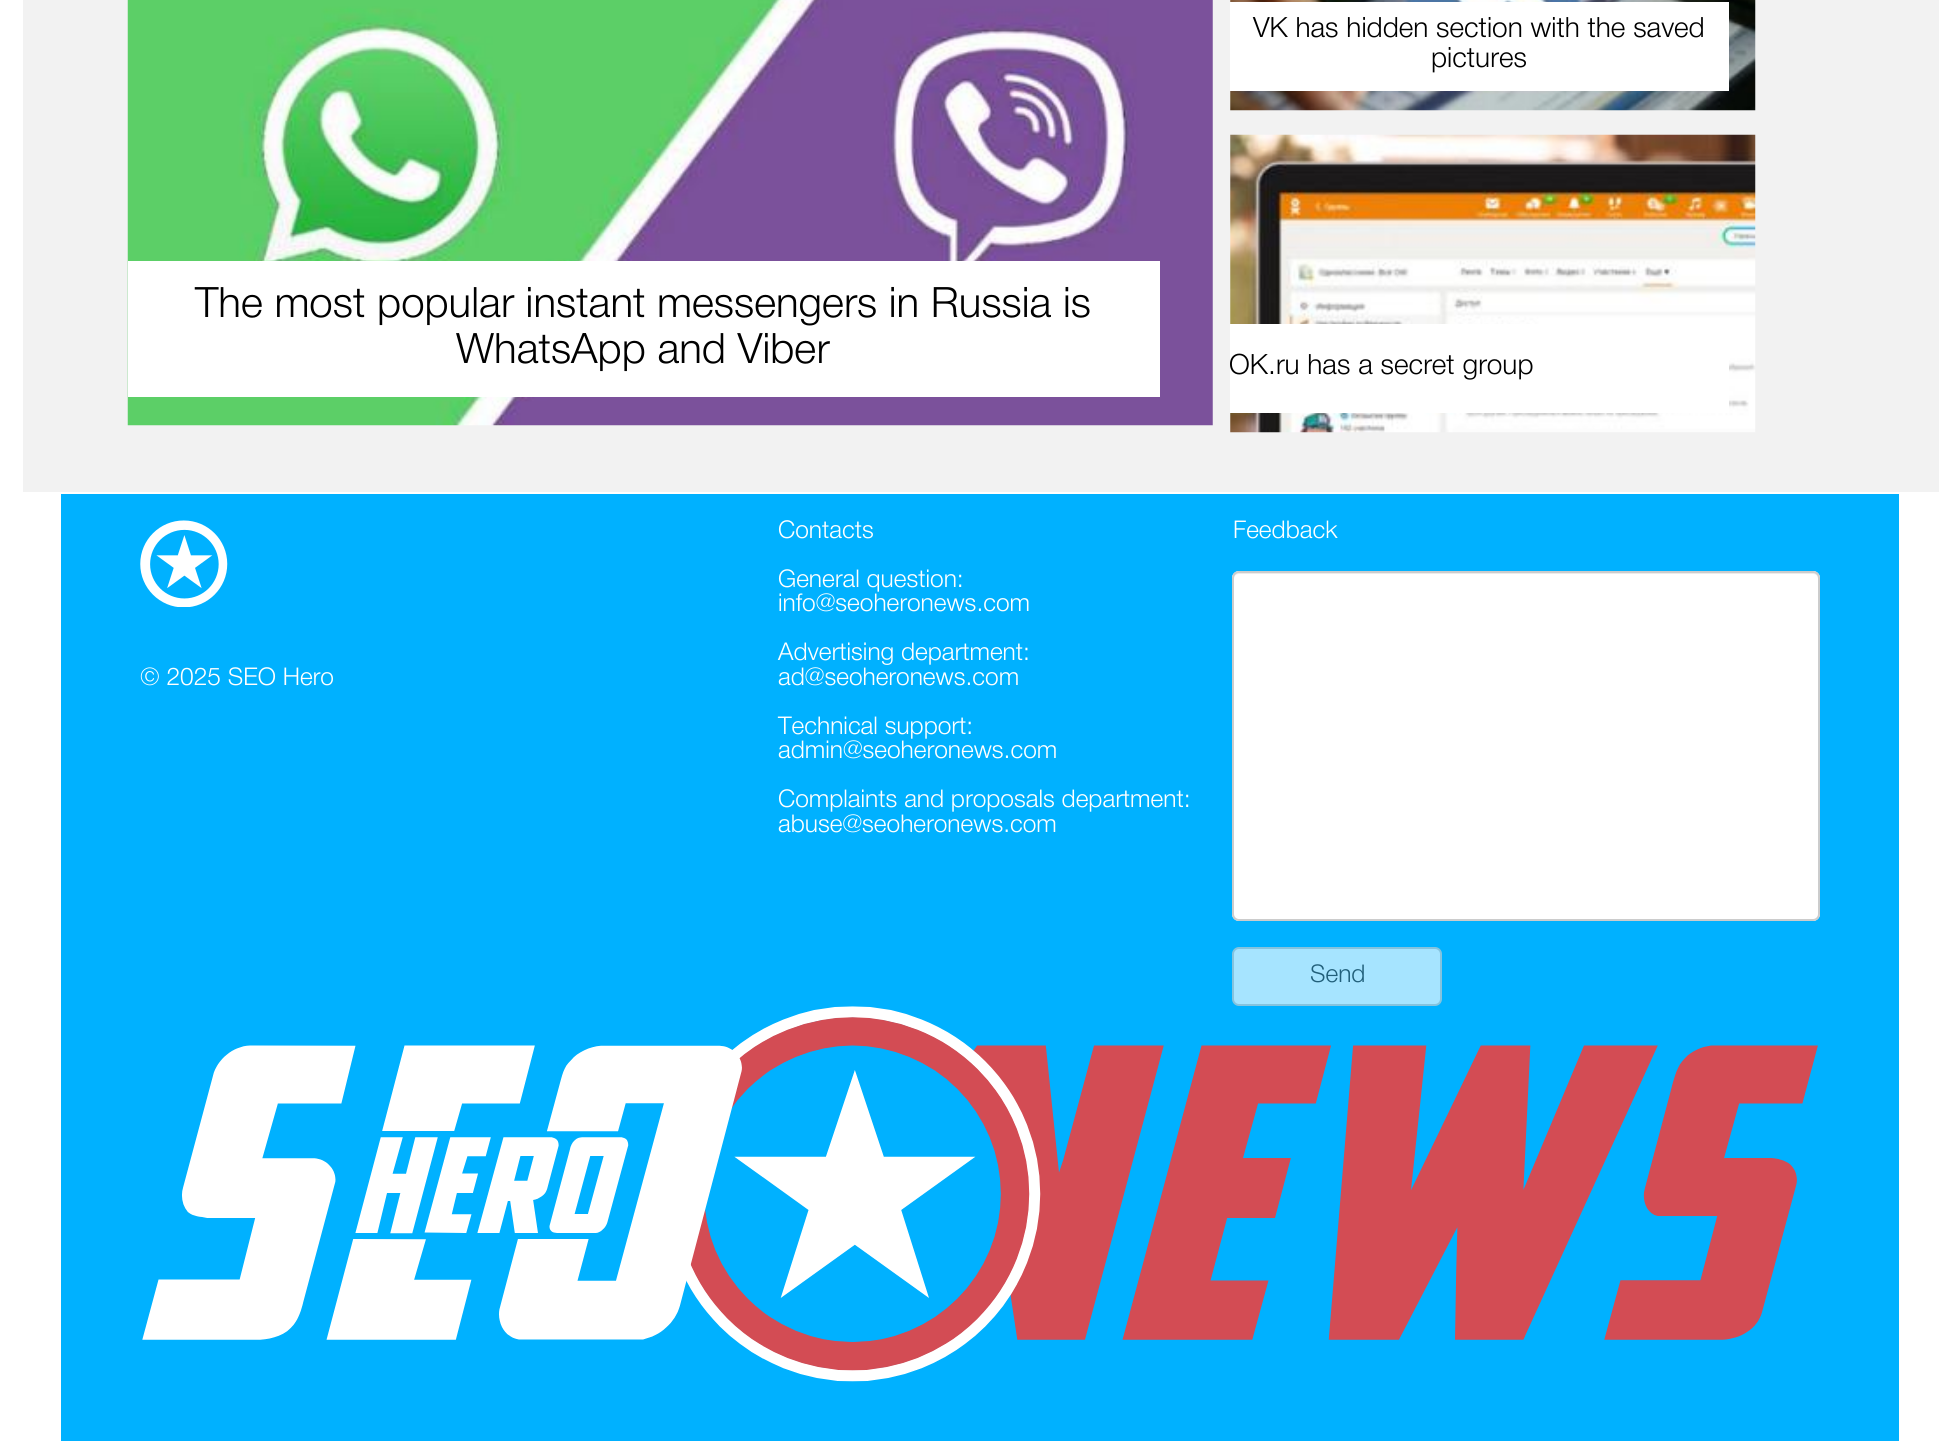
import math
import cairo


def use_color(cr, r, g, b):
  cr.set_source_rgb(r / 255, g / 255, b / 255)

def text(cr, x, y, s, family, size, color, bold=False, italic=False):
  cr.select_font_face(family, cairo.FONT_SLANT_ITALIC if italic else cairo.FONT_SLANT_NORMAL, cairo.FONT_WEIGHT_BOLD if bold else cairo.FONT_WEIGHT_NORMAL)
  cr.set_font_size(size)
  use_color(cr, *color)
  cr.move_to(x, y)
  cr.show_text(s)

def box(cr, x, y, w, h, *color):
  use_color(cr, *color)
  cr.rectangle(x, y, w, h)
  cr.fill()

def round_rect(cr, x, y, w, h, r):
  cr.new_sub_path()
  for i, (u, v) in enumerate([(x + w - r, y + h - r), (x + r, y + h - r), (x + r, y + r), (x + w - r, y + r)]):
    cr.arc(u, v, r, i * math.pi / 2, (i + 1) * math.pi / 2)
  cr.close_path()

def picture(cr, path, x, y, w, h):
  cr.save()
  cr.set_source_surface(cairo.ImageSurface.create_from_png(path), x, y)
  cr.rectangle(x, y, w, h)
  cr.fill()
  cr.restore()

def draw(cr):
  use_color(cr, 255, 255, 255)
  cr.paint()
  box(cr, 23, 0, 1916, 492, 242, 242, 242)
  picture(cr, "img_01.png", 1230, 0, 526, 111)
  box(cr, 1230, 2, 499, 89, 255, 255, 255)
  picture(cr, "img_02.png", 127, 0, 1086, 426)
  box(cr, 128, 261, 1032, 136, 255, 255, 255)
  picture(cr, "img_03.png", 1230, 134, 526, 299)
  box(cr, 1230, 324, 499, 89, 255, 255, 255)
  box(cr, 61, 494, 1838, 947, 0, 177, 255)
  picture(cr, "img_04.png", 140, 520, 88, 87)
  use_color(cr, 255, 255, 255)
  round_rect(cr, 1232, 571, 588, 350, 7)
  cr.fill()
  use_color(cr, 236, 236, 236)
  cr.new_path()
  cr.move_to(1239, 574)
  cr.line_to(1813, 574)
  cr.curve_to(1816, 574, 1818, 576, 1818, 579)
  cr.line_to(1818, 577)
  cr.curve_to(1818, 574, 1816, 572, 1813, 572)
  cr.line_to(1239, 572)
  cr.curve_to(1236, 572, 1234, 574, 1234, 577)
  cr.line_to(1234, 579)
  cr.curve_to(1234, 576, 1236, 574, 1239, 574)
  cr.close_path()
  cr.fill()
  round_rect(cr, 1233, 572, 586, 348, 6)
  use_color(cr, 204, 204, 204)
  cr.stroke()
  use_color(cr, 166, 228, 255)
  round_rect(cr, 1233, 948, 208, 57, 6)
  cr.fill_preserve()
  use_color(cr, 133, 195, 222)
  cr.stroke()
  picture(cr, "img_05.png", 142, 1006, 1676, 376)
  text(cr, 1253, 37, "VK has hidden section with the saved", "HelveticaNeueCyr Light", 28, (0, 0, 0))
  text(cr, 1431, 67, "pictures", "HelveticaNeueCyr Light", 28, (0, 0, 0))
  text(cr, 195, 317, "The most popular instant messengers in Russia is", "HelveticaNeueCyr Light", 42, (0, 0, 0))
  text(cr, 456, 363, "WhatsApp and Viber", "HelveticaNeueCyr Light", 42, (0, 0, 0))
  text(cr, 1229, 374, "OK.ru has a secret group", "HelveticaNeueCyr Light", 28, (0, 0, 0))
  text(cr, 140, 685, "© 2025 SEO Hero", "HelveticaNeueCyr Light", 24.5, (255, 255, 255))
  text(cr, 778, 538, "Contacts", "HelveticaNeueCyr Light", 24.5, (255, 255, 255))
  text(cr, 778, 587, "General question:", "HelveticaNeueCyr Light", 24.5, (255, 255, 255))
  text(cr, 778, 611, "info@seoheronews.com", "HelveticaNeueCyr Light", 24.5, (255, 255, 255))
  text(cr, 778, 660, "Advertising department:", "HelveticaNeueCyr Light", 24.5, (255, 255, 255))
  text(cr, 778, 685, "ad@seoheronews.com", "HelveticaNeueCyr Light", 24.5, (255, 255, 255))
  text(cr, 778, 734, "Technical support:", "HelveticaNeueCyr Light", 24.5, (255, 255, 255))
  text(cr, 778, 758, "admin@seoheronews.com", "HelveticaNeueCyr Light", 24.5, (255, 255, 255))
  text(cr, 778, 807, "Complaints and proposals department:", "HelveticaNeueCyr Light", 24.5, (255, 255, 255))
  text(cr, 778, 832, "abuse@seoheronews.com", "HelveticaNeueCyr Light", 24.5, (255, 255, 255))
  text(cr, 1233, 538, "Feedback", "HelveticaNeueCyr Light", 24.5, (255, 255, 255))
  text(cr, 1310, 982, "Send", "HelveticaNeueCyr Light", 24.5, (33, 95, 122))


surface = cairo.ImageSurface(cairo.FORMAT_RGB24, 1959, 1441)
cr = cairo.Context(surface)
options = cairo.FontOptions()
options.set_hint_metrics(cairo.HINT_METRICS_OFF)
options.set_hint_style(cairo.HINT_STYLE_NONE)
cr.set_font_options(options)
cr.set_miter_limit(4)
draw(cr)
surface.write_to_png("out.png")
